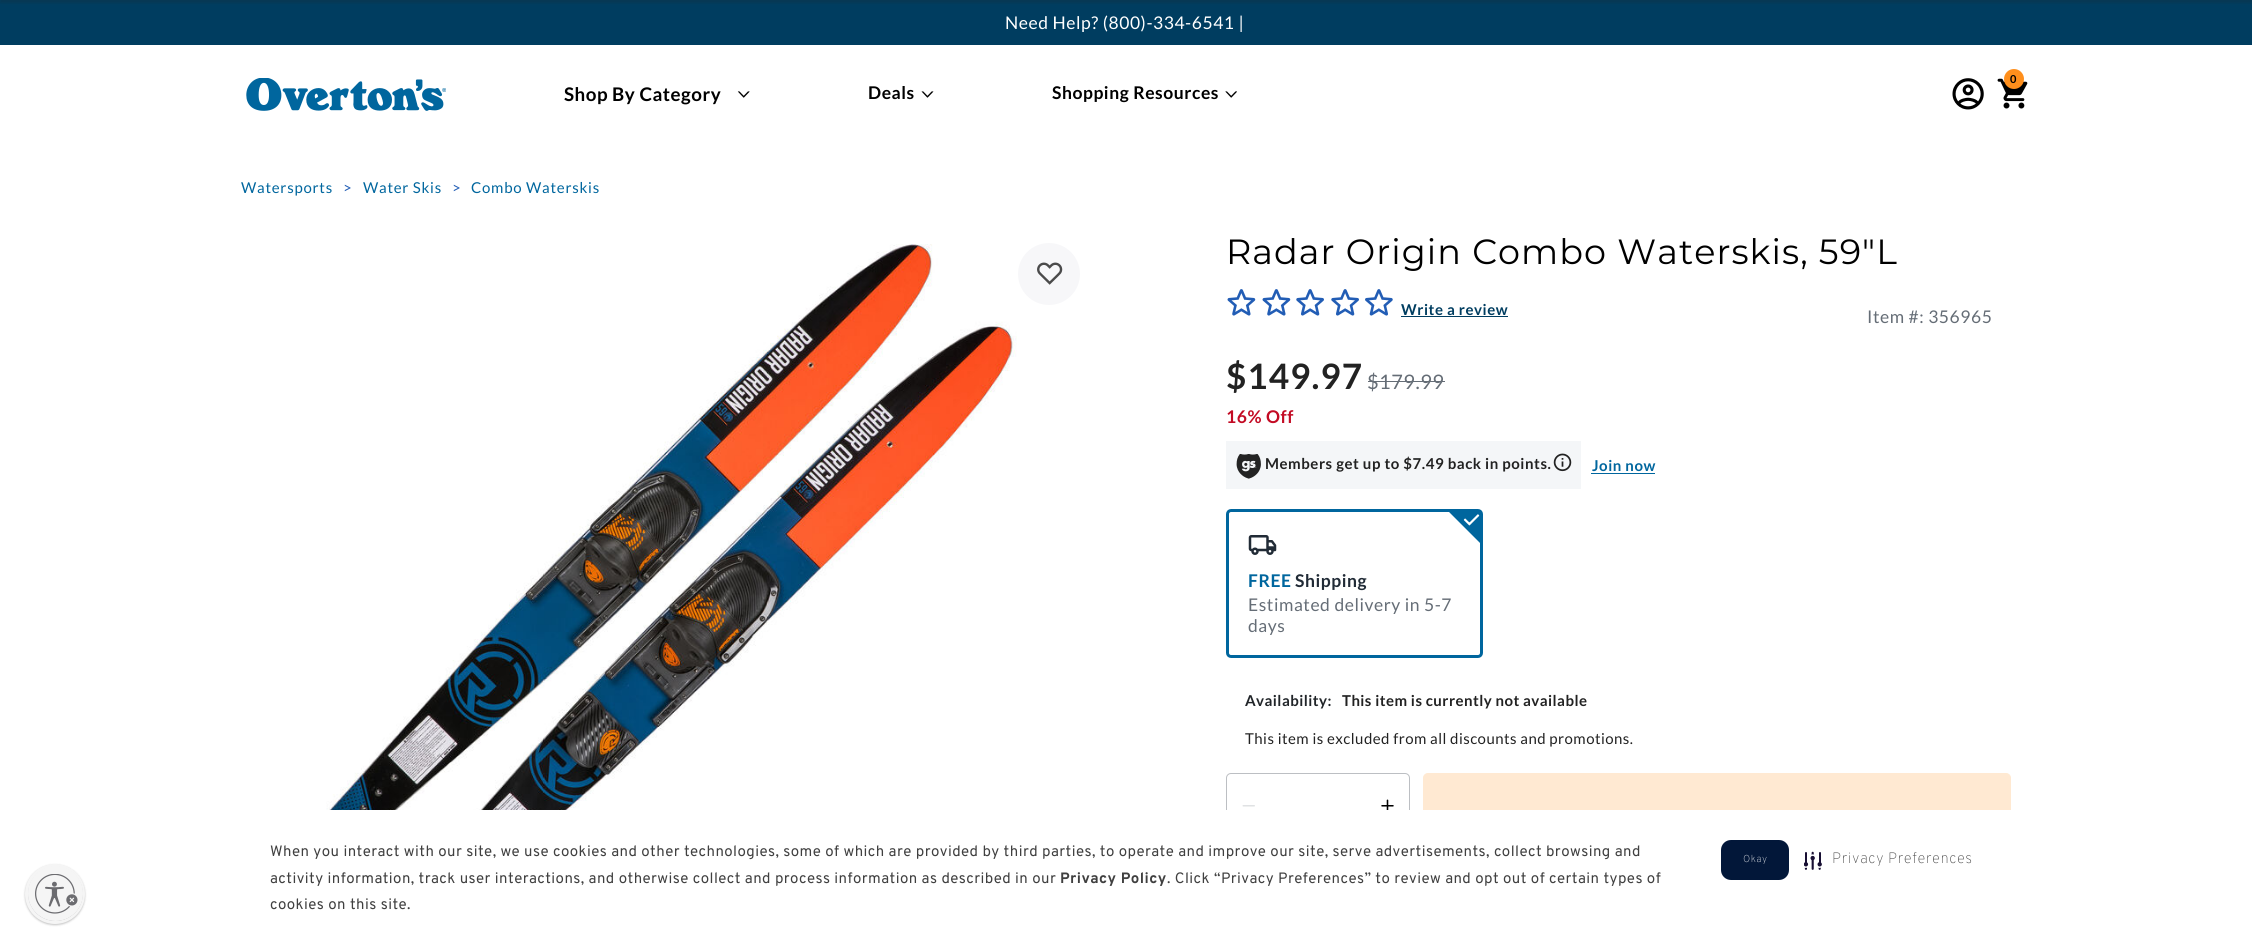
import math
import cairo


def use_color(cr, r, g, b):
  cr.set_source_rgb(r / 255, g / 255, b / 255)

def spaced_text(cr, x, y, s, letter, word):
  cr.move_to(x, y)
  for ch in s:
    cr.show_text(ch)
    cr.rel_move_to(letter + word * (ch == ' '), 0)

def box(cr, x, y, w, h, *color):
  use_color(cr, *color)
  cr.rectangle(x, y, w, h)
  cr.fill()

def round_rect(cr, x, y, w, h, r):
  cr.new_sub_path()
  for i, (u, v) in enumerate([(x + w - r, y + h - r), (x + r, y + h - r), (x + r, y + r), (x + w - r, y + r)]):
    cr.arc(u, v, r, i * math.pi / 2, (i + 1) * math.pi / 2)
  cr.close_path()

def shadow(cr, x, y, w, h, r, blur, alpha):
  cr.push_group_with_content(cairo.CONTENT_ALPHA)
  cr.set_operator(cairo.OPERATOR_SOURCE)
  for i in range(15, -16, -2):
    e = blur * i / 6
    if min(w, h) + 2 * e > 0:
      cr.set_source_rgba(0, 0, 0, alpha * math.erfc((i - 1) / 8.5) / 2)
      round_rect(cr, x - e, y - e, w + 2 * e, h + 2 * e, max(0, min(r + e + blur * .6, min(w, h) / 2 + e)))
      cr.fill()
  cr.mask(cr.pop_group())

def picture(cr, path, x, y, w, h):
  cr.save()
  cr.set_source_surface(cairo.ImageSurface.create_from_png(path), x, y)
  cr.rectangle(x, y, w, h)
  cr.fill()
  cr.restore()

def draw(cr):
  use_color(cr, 255, 255, 255)
  cr.paint()
  box(cr, 0, 0, 2252, 45, 0, 61, 96)
  picture(cr, "img_01.png", 1952, 78, 32, 32)
  picture(cr, "img_02.png", 1997, 78, 31, 31)
  use_color(cr, 255, 143, 28)
  cr.arc(2014, 79, 10, 0, 2 * math.pi)
  cr.fill()
  picture(cr, "img_03.png", 246, 78, 200, 33)
  picture(cr, "img_04.png", 737, 91, 13, 7)
  picture(cr, "img_05.png", 921, 91, 13, 7)
  picture(cr, "img_06.png", 1225, 91, 12, 7)
  picture(cr, "img_07.png", 326, 244, 691, 566)
  use_color(cr, 247, 247, 249)
  cr.arc(1049, 274, 31, 0, 2 * math.pi)
  cr.fill()
  picture(cr, "img_08.png", 1037, 262, 26, 23)
  picture(cr, "img_09.png", 1227, 289, 29, 27)
  picture(cr, "img_09.png", 1262, 289, 29, 27)
  picture(cr, "img_10.png", 1296, 289, 28, 27)
  picture(cr, "img_10.png", 1331, 289, 28, 27)
  picture(cr, "img_11.png", 1365, 289, 28, 27)
  box(cr, 1401, 316, 107, 1, 0, 61, 96)
  box(cr, 1368, 381, 77, 1, 101, 109, 118)
  box(cr, 1226, 441, 355, 48, 244, 246, 248)
  picture(cr, "img_12.png", 1236, 454, 25, 25)
  picture(cr, "img_13.png", 1553, 453, 19, 19)
  box(cr, 1591, 473, 64, 1, 0, 102, 158)
  use_color(cr, 34, 34, 34)
  shadow(cr, 0, -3, 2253, 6, 0, 1, 0.2)
  round_rect(cr, 1227.5, 510.5, 254, 146, 3.5)
  use_color(cr, 0, 102, 158)
  cr.set_line_width(3)
  cr.stroke()
  picture(cr, "img_14.png", 1248, 535, 29, 20)
  cr.new_path()
  cr.move_to(1481, 544)
  cr.line_to(1447, 510)
  cr.line_to(1481, 510)
  cr.close_path()
  cr.fill()
  picture(cr, "img_15.png", 1463, 514, 17, 12)
  round_rect(cr, 1226.5, 773.5, 183, 66, 4.5)
  use_color(cr, 188, 191, 195)
  cr.set_line_width(1)
  cr.stroke()
  picture(cr, "img_16.png", 1242, 805, 13, 2)
  picture(cr, "img_17.png", 1381, 799, 13, 11)
  use_color(cr, 255, 233, 210)
  round_rect(cr, 1423.5, 773.5, 587, 66, 4.5)
  cr.fill_preserve()
  cr.stroke()
  use_color(cr, 0, 0, 0)
  shadow(cr, 25, 865, 60, 60, 30, 1, 0.24)
  use_color(cr, 235, 235, 240)
  cr.arc(55, 894, 28.5, 0, 2 * math.pi)
  cr.fill_preserve()
  use_color(cr, 245, 245, 245)
  cr.set_line_width(3)
  cr.stroke()
  cr.save()
  round_rect(cr, 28, 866, 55, 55, 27.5)
  cr.clip()
  use_color(cr, 0, 0, 0)
  shadow(cr, 28, 868, 55, 55, 27.5, 1, 0.24)
  cr.restore()
  cr.arc(55.5, 893.5, 27.5, 0, 2 * math.pi)
  cr.fill()
  picture(cr, "img_18.png", 35, 874, 43, 40)
  box(cr, 1226, 810, 785, 30, 255, 255, 255)
  use_color(cr, 2, 23, 57)
  round_rect(cr, 1721, 840, 68, 40, 10)
  cr.fill()
  picture(cr, "img_19.png", 1804, 851, 18, 19)
  cr.select_font_face("Lato")
  cr.set_font_size(17.5)
  use_color(cr, 255, 255, 255)
  spaced_text(cr, 1005, 29, "Need Help? (800)-334-6541 |", 0.55, 0)
  cr.select_font_face("Lato", cairo.FONT_SLANT_NORMAL, cairo.FONT_WEIGHT_BOLD)
  cr.set_font_size(11)
  use_color(cr, 0, 0, 0)
  spaced_text(cr, 2010, 83, "0", 0.55, 0)
  cr.set_font_size(18.75)
  spaced_text(cr, 564, 101, "Shop By Category", 0.5, 0)
  cr.set_font_size(17.5)
  spaced_text(cr, 868, 99, "Deals", 0.55, 0)
  spaced_text(cr, 1052, 99, "Shopping Resources", 0.55, 0)
  cr.select_font_face("Lato")
  cr.set_font_size(15)
  use_color(cr, 0, 102, 158)
  spaced_text(cr, 241, 193, "Watersports", 0.75, 0)
  use_color(cr, 34, 93, 181)
  spaced_text(cr, 343, 193, ">", 0.75, 0)
  use_color(cr, 0, 102, 158)
  spaced_text(cr, 363, 193, "Water Skis", 0.75, 0)
  use_color(cr, 34, 93, 181)
  spaced_text(cr, 452, 193, ">", 0.75, 0)
  use_color(cr, 0, 102, 158)
  spaced_text(cr, 471, 193, "Combo Waterskis", 0.75, 0)
  cr.select_font_face("Montserrat")
  cr.set_font_size(35)
  use_color(cr, 0, 0, 0)
  spaced_text(cr, 1226, 264, "Radar Origin Combo Waterskis, 59\"L", 1.05, 0)
  cr.select_font_face("Lato", cairo.FONT_SLANT_NORMAL, cairo.FONT_WEIGHT_BOLD)
  cr.set_font_size(15)
  use_color(cr, 0, 61, 96)
  spaced_text(cr, 1401, 315, "Write a review", 0.55, 0)
  cr.select_font_face("Lato")
  cr.set_font_size(17.5)
  use_color(cr, 101, 109, 118)
  spaced_text(cr, 1867, 323, "Item #: 356965", 0.55, 0)
  cr.select_font_face("Lato", cairo.FONT_SLANT_NORMAL, cairo.FONT_WEIGHT_BOLD)
  cr.set_font_size(35)
  use_color(cr, 34, 34, 34)
  spaced_text(cr, 1226, 389, "$149.97", 1.05, 0)
  cr.select_font_face("Lato")
  cr.set_font_size(20)
  use_color(cr, 101, 109, 118)
  spaced_text(cr, 1367, 389, "$179.99", 0.5, 0)
  cr.select_font_face("Lato", cairo.FONT_SLANT_NORMAL, cairo.FONT_WEIGHT_BOLD)
  cr.set_font_size(17.5)
  use_color(cr, 195, 11, 36)
  spaced_text(cr, 1226, 423, "16% Off", 0.55, 0)
  cr.set_font_size(15)
  use_color(cr, 34, 34, 34)
  spaced_text(cr, 1265, 469, "Members get up to $7.49 back in points.", 0.55, 0)
  use_color(cr, 0, 102, 158)
  spaced_text(cr, 1592, 471, "Join now", 0.55, 0)
  cr.set_font_size(17.5)
  spaced_text(cr, 1248, 587, "FREE", 0.55, 0)
  use_color(cr, 33, 43, 54)
  spaced_text(cr, 1295, 587, "Shipping", 0.55, 0)
  cr.select_font_face("Lato")
  use_color(cr, 101, 109, 118)
  spaced_text(cr, 1248, 611, "Estimated delivery in 5-7", 0.55, 0)
  spaced_text(cr, 1248, 632, "days", 0.55, 0)
  cr.select_font_face("Lato", cairo.FONT_SLANT_NORMAL, cairo.FONT_WEIGHT_BOLD)
  cr.set_font_size(15)
  use_color(cr, 33, 37, 41)
  spaced_text(cr, 1245, 706, "Availability:", 0.45, 0)
  use_color(cr, 34, 34, 34)
  spaced_text(cr, 1342, 706, "This item is currently not available", 0.45, 0)
  cr.select_font_face("Lato")
  spaced_text(cr, 1245, 744, "This item is excluded from all discounts and promotions.", 0.45, 0)
  cr.select_font_face("Overpass")
  use_color(cr, 64, 64, 64)
  spaced_text(cr, 270, 856, "When you interact with our site, we use cookies and other technologies, some of which are provided by third parties, to operate and improve our site, serve advertisements, collect browsing and", 0.45, 0)
  spaced_text(cr, 270, 883, "activity information, track user interactions, and otherwise collect and process information as described in our", 0.45, 0)
  cr.select_font_face("Overpass", cairo.FONT_SLANT_NORMAL, cairo.FONT_WEIGHT_BOLD)
  spaced_text(cr, 1060, 883, "Privacy Policy", 0.45, 0)
  cr.select_font_face("Overpass")
  spaced_text(cr, 1167, 883, ". Click “Privacy Preferences” to review and opt out of certain types of", 0.45, 0)
  spaced_text(cr, 270, 909, "cookies on this site.", 0.45, 0)
  cr.select_font_face("Overpass Thin")
  cr.set_font_size(10)
  use_color(cr, 255, 255, 255)
  spaced_text(cr, 1743, 862, "Okay", 0.55, 0)
  cr.set_font_size(15)
  use_color(cr, 64, 64, 64)
  spaced_text(cr, 1832, 863, "Privacy Preferences", 0.55, 0)


surface = cairo.ImageSurface(cairo.FORMAT_RGB24, 2252, 948)
cr = cairo.Context(surface)
options = cairo.FontOptions()
options.set_hint_metrics(cairo.HINT_METRICS_OFF)
options.set_hint_style(cairo.HINT_STYLE_NONE)
cr.set_font_options(options)
cr.set_miter_limit(4)
draw(cr)
surface.write_to_png("out.png")
